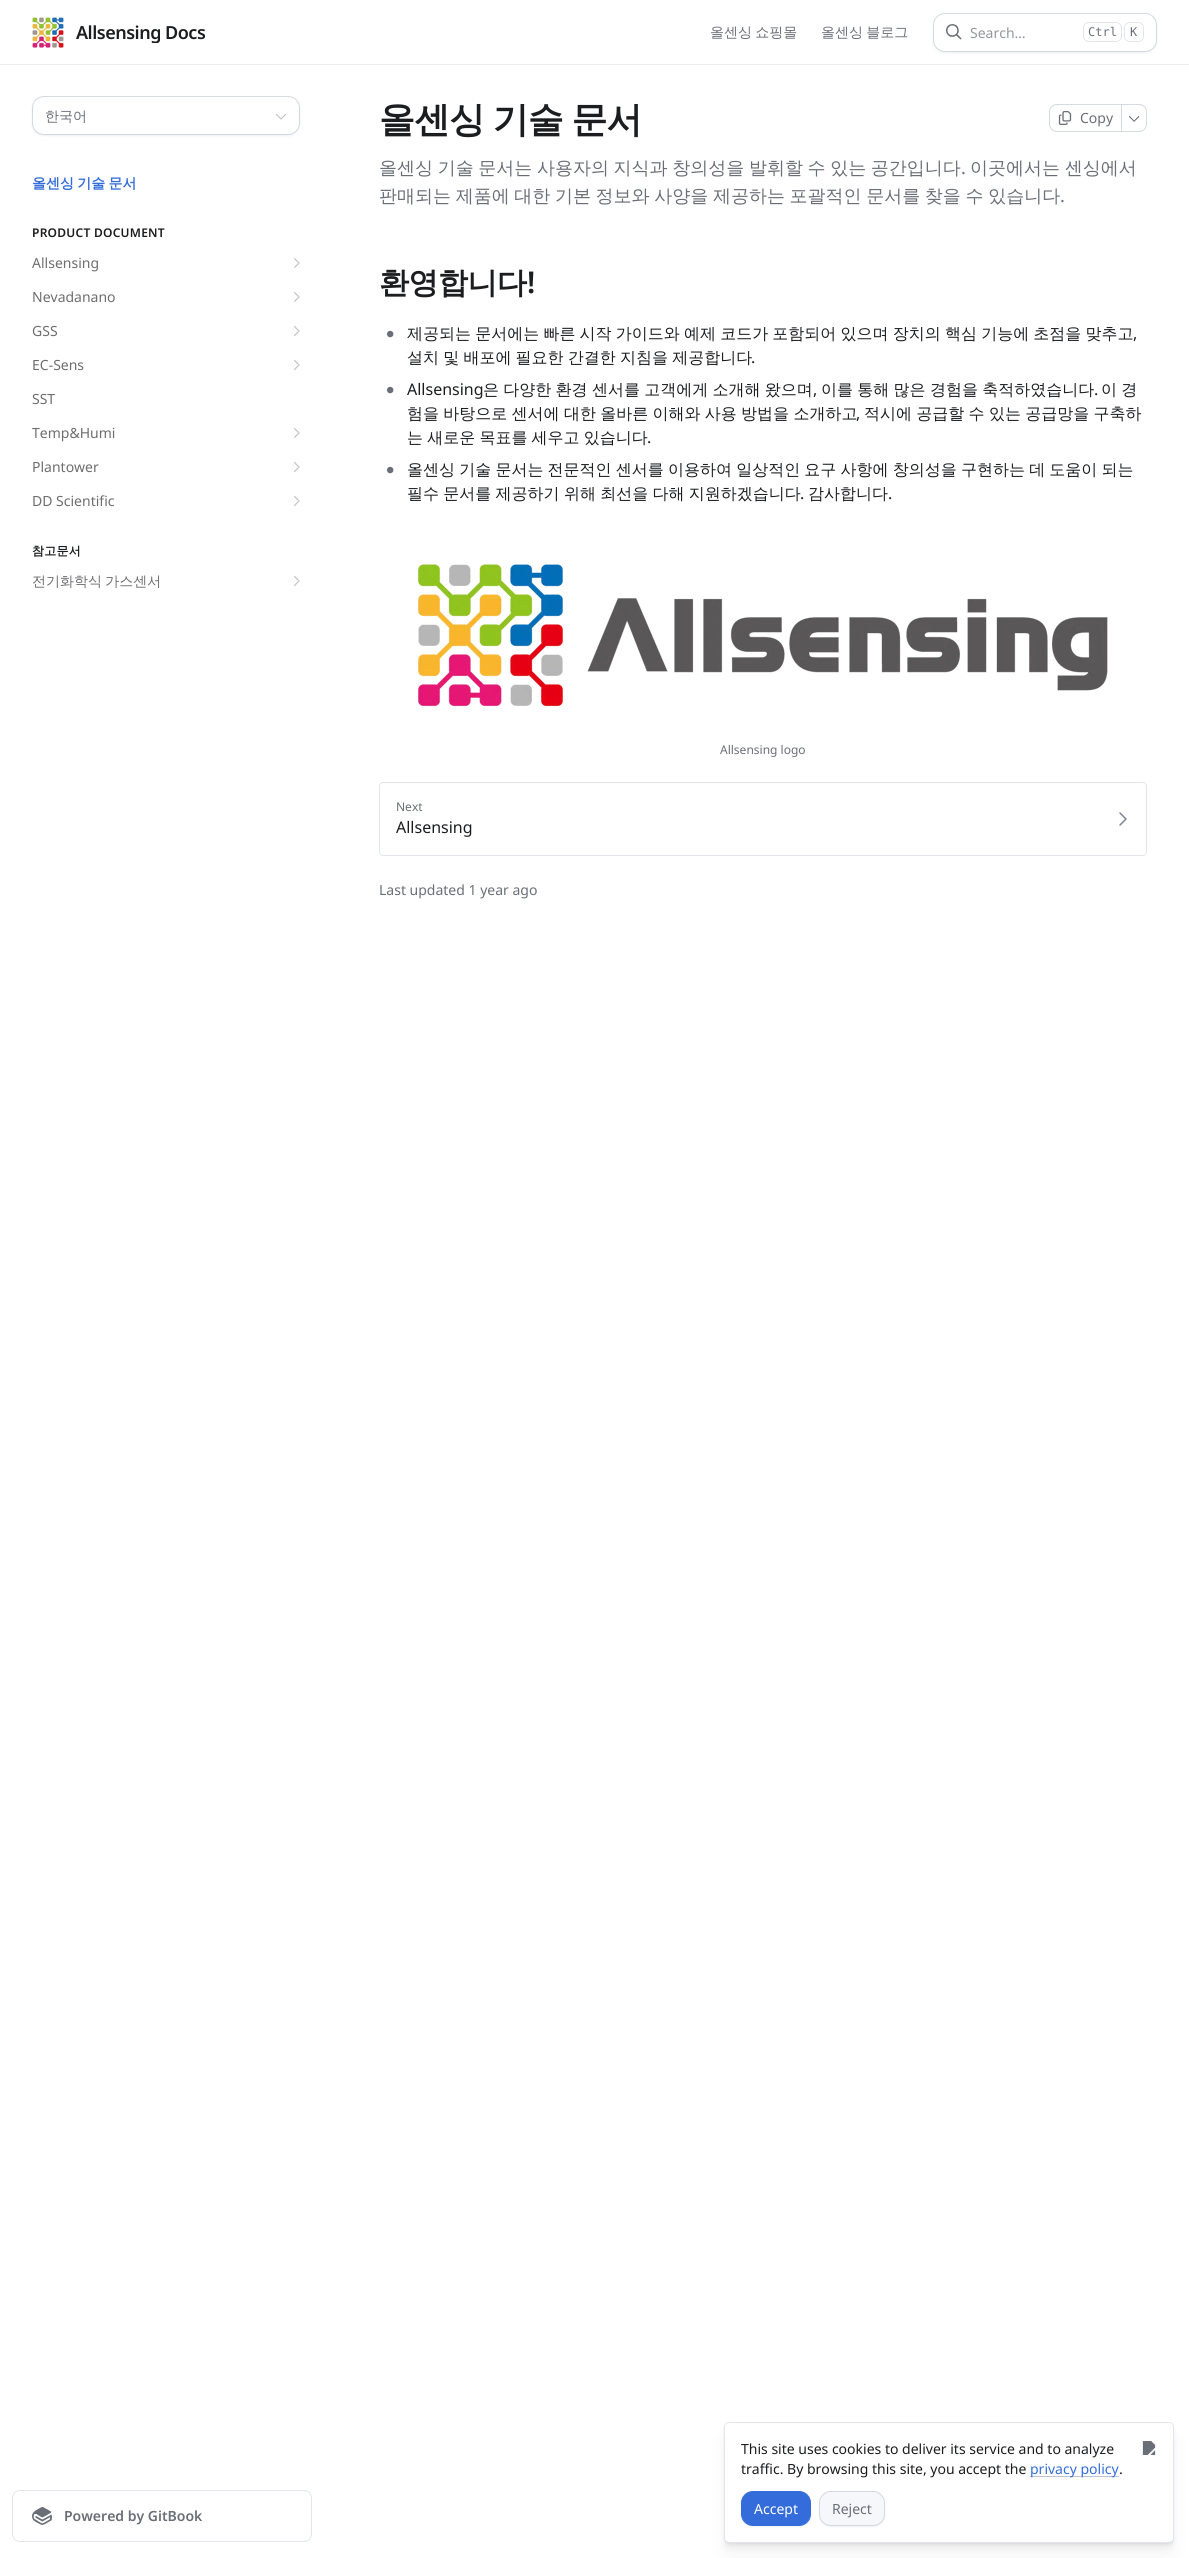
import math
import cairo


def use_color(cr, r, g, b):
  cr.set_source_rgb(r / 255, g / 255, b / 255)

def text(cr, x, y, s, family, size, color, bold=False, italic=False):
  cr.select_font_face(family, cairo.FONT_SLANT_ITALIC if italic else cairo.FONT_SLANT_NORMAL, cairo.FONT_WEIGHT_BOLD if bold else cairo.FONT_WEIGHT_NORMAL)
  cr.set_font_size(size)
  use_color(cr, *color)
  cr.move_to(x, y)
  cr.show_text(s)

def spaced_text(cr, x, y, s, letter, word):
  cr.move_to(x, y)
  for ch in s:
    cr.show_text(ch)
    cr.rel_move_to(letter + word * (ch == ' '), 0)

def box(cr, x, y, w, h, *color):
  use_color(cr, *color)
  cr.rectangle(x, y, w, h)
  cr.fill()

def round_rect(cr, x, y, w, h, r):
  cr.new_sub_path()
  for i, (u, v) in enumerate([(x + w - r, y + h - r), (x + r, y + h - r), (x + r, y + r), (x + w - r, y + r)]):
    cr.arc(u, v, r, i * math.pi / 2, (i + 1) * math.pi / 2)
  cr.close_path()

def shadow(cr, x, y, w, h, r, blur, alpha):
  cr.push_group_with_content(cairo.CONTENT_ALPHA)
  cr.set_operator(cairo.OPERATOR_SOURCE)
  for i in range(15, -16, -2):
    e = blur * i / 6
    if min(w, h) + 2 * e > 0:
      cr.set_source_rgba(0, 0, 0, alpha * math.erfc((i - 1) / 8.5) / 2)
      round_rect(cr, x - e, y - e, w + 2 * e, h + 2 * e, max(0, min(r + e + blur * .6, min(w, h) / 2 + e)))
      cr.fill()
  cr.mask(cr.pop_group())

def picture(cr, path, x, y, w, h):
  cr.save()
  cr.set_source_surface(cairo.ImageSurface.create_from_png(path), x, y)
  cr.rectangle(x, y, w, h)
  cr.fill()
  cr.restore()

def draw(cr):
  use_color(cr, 255, 255, 255)
  cr.paint()
  box(cr, 0, 64, 1189, 1, 237, 237, 237)
  picture(cr, "img_01.png", 32, 17, 32, 31)
  use_color(cr, 213, 217, 224)
  shadow(cr, 933, 14, 224, 39, 12, 1, 0.4)
  use_color(cr, 255, 255, 255)
  round_rect(cr, 933.5, 13.5, 223, 38, 11.5)
  cr.fill_preserve()
  use_color(cr, 213, 217, 224)
  cr.set_line_width(1)
  cr.stroke()
  picture(cr, "img_02.png", 946, 24, 16, 16)
  round_rect(cr, 1083.5, 22.5, 38, 19, 5.5)
  use_color(cr, 226, 230, 236)
  cr.stroke()
  round_rect(cr, 1124.5, 22.5, 19, 19, 5.5)
  cr.stroke()
  use_color(cr, 213, 217, 224)
  shadow(cr, 32, 97, 268, 39, 12, 1, 0.4)
  use_color(cr, 255, 255, 255)
  round_rect(cr, 32.5, 96.5, 267, 38, 11.5)
  cr.fill_preserve()
  use_color(cr, 213, 217, 224)
  cr.stroke()
  picture(cr, "img_03.png", 276, 114, 10, 6)
  picture(cr, "img_04.png", 294, 258, 6, 10)
  picture(cr, "img_04.png", 294, 292, 6, 10)
  picture(cr, "img_04.png", 294, 326, 6, 10)
  picture(cr, "img_04.png", 294, 360, 6, 10)
  picture(cr, "img_04.png", 294, 428, 6, 10)
  picture(cr, "img_04.png", 294, 462, 6, 10)
  picture(cr, "img_04.png", 294, 496, 6, 10)
  picture(cr, "img_04.png", 294, 576, 6, 10)
  round_rect(cr, 12.5, 2490.5, 299, 51, 7.5)
  use_color(cr, 226, 230, 236)
  cr.stroke()
  picture(cr, "img_05.png", 32, 2507, 20, 18)
  cr.new_path()
  cr.move_to(1057, 104.5)
  cr.line_to(1121.5, 104.5)
  cr.line_to(1121.5, 131.5)
  cr.line_to(1057, 131.5)
  cr.curve_to(1053, 131.5, 1049.5, 128, 1049.5, 124)
  cr.line_to(1049.5, 112)
  cr.curve_to(1049.5, 108, 1053, 104.5, 1057, 104.5)
  cr.close_path()
  use_color(cr, 213, 217, 224)
  cr.stroke()
  picture(cr, "img_06.png", 1058, 111, 14, 14)
  cr.set_fill_rule(cairo.FILL_RULE_EVEN_ODD)
  cr.new_path()
  cr.move_to(1122, 104)
  cr.line_to(1139, 104)
  cr.curve_to(1143.5, 104, 1147, 107.5, 1147, 112)
  cr.line_to(1147, 124)
  cr.curve_to(1147, 128.5, 1143.5, 132, 1139, 132)
  cr.line_to(1122, 132)
  cr.close_path()
  cr.move_to(1122, 105)
  cr.line_to(1139, 105)
  cr.curve_to(1143, 105, 1146, 108, 1146, 112)
  cr.line_to(1146, 124)
  cr.curve_to(1146, 128, 1143, 131, 1139, 131)
  cr.line_to(1122, 131)
  cr.close_path()
  cr.fill()
  picture(cr, "img_07.png", 1129, 116, 11, 6)
  picture(cr, "img_08.png", 418, 564, 690, 143)
  round_rect(cr, 379.5, 782.5, 767, 73, 3.5)
  use_color(cr, 226, 230, 236)
  cr.stroke()
  picture(cr, "img_09.png", 1119, 812, 8, 14)
  use_color(cr, 0, 0, 0)
  shadow(cr, 725, 2437, 448, 119, 4, 11, 0.04)
  shadow(cr, 725, 2429, 448, 119, 4, 3.5, 0.05)
  shadow(cr, 725, 2426, 448, 119, 4, 1.5, 0.05)
  shadow(cr, 725, 2424, 448, 119, 4, 0.5, 0.09)
  round_rect(cr, 724.5, 2422.5, 449, 120, 4.5)
  use_color(cr, 226, 230, 236)
  cr.stroke()
  use_color(cr, 255, 255, 255)
  round_rect(cr, 725, 2423, 448, 119, 4)
  cr.fill()
  box(cr, 1030, 2476, 89, 1, 188, 197, 214)
  picture(cr, "img_10.png", 1142, 2441, 14, 14)
  use_color(cr, 213, 217, 224)
  shadow(cr, 741, 2492, 70, 35, 12, 1, 0.4)
  use_color(cr, 52, 109, 219)
  round_rect(cr, 741.5, 2491.5, 69, 34, 11.5)
  cr.fill_preserve()
  cr.stroke()
  use_color(cr, 213, 217, 224)
  shadow(cr, 819, 2492, 66, 35, 12, 1, 0.4)
  use_color(cr, 246, 247, 250)
  round_rect(cr, 819.5, 2491.5, 65, 34, 11.5)
  cr.fill_preserve()
  use_color(cr, 213, 217, 224)
  cr.stroke()
  cr.save()
  cr.set_fill_rule(cairo.FILL_RULE_WINDING)
  cr.rectangle(76, 21, 130, 22)
  cr.clip()
  cr.select_font_face("Noto Sans SemiBold")
  cr.set_font_size(18)
  use_color(cr, 28, 29, 31)
  spaced_text(cr, 76, 39, "Allsensing Docs", -0.5, 0)
  cr.restore()
  cr.select_font_face("WenQuanYi Zen Hei Medium")
  cr.set_font_size(14)
  use_color(cr, 106, 110, 119)
  spaced_text(cr, 710, 37, "올센싱 쇼핑몰", 0, -1)
  spaced_text(cr, 821, 37, "올센싱 블로그", 0, -1)
  text(cr, 970, 38, "Search…", "Noto Sans", 14, (148, 151, 157))
  text(cr, 1088, 36, "Ctrl", "DejaVu Sans Mono", 12, (106, 110, 119))
  text(cr, 1130, 36, "K", "DejaVu Sans Mono", 12, (106, 110, 119))
  text(cr, 45, 121, "한국어", "WenQuanYi Zen Hei Medium", 14, (106, 110, 119))
  cr.select_font_face("WenQuanYi Zen Hei", cairo.FONT_SLANT_NORMAL, cairo.FONT_WEIGHT_BOLD)
  use_color(cr, 52, 109, 219)
  spaced_text(cr, 32, 188, "올센싱 기술 문서", 0, -1)
  cr.select_font_face("Noto Sans SemiBold")
  cr.set_font_size(12)
  use_color(cr, 28, 29, 31)
  spaced_text(cr, 32, 237, "PRODUCT DOCUMENT", 0.25, 0)
  text(cr, 32, 268, "Allsensing", "Noto Sans", 14, (110, 110, 112))
  text(cr, 32, 302, "Nevadanano", "Noto Sans", 14, (110, 110, 112))
  text(cr, 32, 336, "GSS", "Noto Sans", 14, (110, 110, 112))
  text(cr, 32, 370, "EC-Sens", "Noto Sans", 14, (110, 110, 112))
  text(cr, 32, 404, "SST", "Noto Sans", 14, (110, 110, 112))
  text(cr, 32, 438, "Temp&Humi", "Noto Sans", 14, (110, 110, 112))
  text(cr, 32, 472, "Plantower", "Noto Sans", 14, (110, 110, 112))
  text(cr, 32, 506, "DD Scientific", "Noto Sans", 14, (110, 110, 112))
  cr.select_font_face("WenQuanYi Zen Hei", cairo.FONT_SLANT_NORMAL, cairo.FONT_WEIGHT_BOLD)
  cr.set_font_size(12)
  use_color(cr, 28, 29, 31)
  spaced_text(cr, 32, 555, "참고문서", 0.25, 0)
  cr.select_font_face("WenQuanYi Zen Hei Medium")
  cr.set_font_size(14)
  use_color(cr, 110, 110, 112)
  spaced_text(cr, 32, 586, "전기화학식 가스센서", 0, -1)
  text(cr, 64, 2521, "Powered by GitBook", "Noto Sans SemiBold", 14, (106, 110, 119))
  cr.select_font_face("WenQuanYi Zen Hei", cairo.FONT_SLANT_NORMAL, cairo.FONT_WEIGHT_BOLD)
  cr.set_font_size(36)
  use_color(cr, 28, 29, 31)
  spaced_text(cr, 379, 132, "올센싱 기술 문서", -1, -1)
  text(cr, 1080, 123, "Copy", "Noto Sans", 14, (106, 110, 119))
  cr.select_font_face("WenQuanYi Zen Hei Medium")
  cr.set_font_size(18)
  spaced_text(cr, 379, 174, "올센싱 기술 문서는 사용자의 지식과 창의성을 발휘할 수 있는 공간입니다", 0, -0.75)
  text(cr, 961, 174, ".", "Noto Sans", 18, (106, 110, 119))
  cr.select_font_face("WenQuanYi Zen Hei Medium")
  spaced_text(cr, 970, 174, "이곳에서는 센싱에서", 0, -0.75)
  spaced_text(cr, 379, 202, "판매되는 제품에 대한 기본 정보와 사양을 제공하는 포괄적인 문서를 찾을 수 있습니다", 0, -0.75)
  text(cr, 1060, 202, ".", "Noto Sans", 18, (106, 110, 119))
  cr.select_font_face("WenQuanYi Zen Hei", cairo.FONT_SLANT_NORMAL, cairo.FONT_WEIGHT_BOLD)
  cr.set_font_size(30)
  use_color(cr, 28, 29, 31)
  spaced_text(cr, 379, 293, "환영합니다", -0.5, 0)
  cr.select_font_face("Noto Sans SemiBold")
  spaced_text(cr, 527, 293, "!", -0.5, 0)
  text(cr, 386, 342, "•", "Liberation Sans", 24, (106, 110, 119))
  cr.select_font_face("WenQuanYi Zen Hei Medium")
  cr.set_font_size(16)
  use_color(cr, 28, 29, 31)
  spaced_text(cr, 407, 339, "제공되는 문서에는 빠른 시작 가이드와 예제 코드가 포함되어 있으며 장치의 핵심 기능에 초점을 맞추고", 0, -0.6)
  text(cr, 1133, 339, ",", "Noto Sans", 16, (28, 29, 31))
  cr.select_font_face("WenQuanYi Zen Hei Medium")
  spaced_text(cr, 407, 363, "설치 및 배포에 필요한 간결한 지침을 제공합니다", 0, -0.6)
  text(cr, 751, 363, ".", "Noto Sans", 16, (28, 29, 31))
  text(cr, 386, 398, "•", "Liberation Sans", 24, (106, 110, 119))
  text(cr, 407, 395, "Allsensing", "Noto Sans", 16, (28, 29, 31))
  cr.select_font_face("WenQuanYi Zen Hei Medium")
  spaced_text(cr, 483, 395, "은 다양한 환경 센서를 고객에게 소개해 왔으며", 0, -0.5)
  text(cr, 813, 395, ",", "Noto Sans", 16, (28, 29, 31))
  cr.select_font_face("WenQuanYi Zen Hei Medium")
  spaced_text(cr, 821, 395, "이를 통해 많은 경험을 축적하였습니다", 0, -0.5)
  text(cr, 1094, 395, ".", "Noto Sans", 16, (28, 29, 31))
  cr.select_font_face("WenQuanYi Zen Hei Medium")
  spaced_text(cr, 1101, 395, "이 경", 0, -0.5)
  spaced_text(cr, 407, 419, "험을 바탕으로 센서에 대한 올바른 이해와 사용 방법을 소개하고", 0, -0.5)
  text(cr, 856, 419, ",", "Noto Sans", 16, (28, 29, 31))
  cr.select_font_face("WenQuanYi Zen Hei Medium")
  spaced_text(cr, 864, 419, "적시에 공급할 수 있는 공급망을 구축하", 0, -0.5)
  spaced_text(cr, 407, 443, "는 새로운 목표를 세우고 있습니다", 0, -0.6)
  text(cr, 647, 443, ".", "Noto Sans", 16, (28, 29, 31))
  text(cr, 386, 478, "•", "Liberation Sans", 24, (106, 110, 119))
  cr.select_font_face("WenQuanYi Zen Hei Medium")
  cr.set_font_size(16)
  use_color(cr, 28, 29, 31)
  spaced_text(cr, 407, 475, "올센싱 기술 문서는 전문적인 센서를 이용하여 일상적인 요구 사항에 창의성을 구현하는 데 도움이 되는", 0, -0.6)
  spaced_text(cr, 407, 499, "필수 문서를 제공하기 위해 최선을 다해 지원하겠습니다", 0, -0.5)
  text(cr, 800, 499, ".", "Noto Sans", 16, (28, 29, 31))
  text(cr, 808, 499, "감사합니다", "WenQuanYi Zen Hei Medium", 16, (28, 29, 31))
  text(cr, 888, 499, ".", "Noto Sans", 16, (28, 29, 31))
  text(cr, 720, 754, "Allsensing logo", "Noto Sans", 12, (106, 110, 119))
  text(cr, 396, 811, "Next", "Noto Sans", 12, (106, 110, 119))
  text(cr, 396, 833, "Allsensing", "Noto Sans", 16, (28, 29, 31))
  text(cr, 379, 895, "Last updated 1 year ago", "Noto Sans", 14, (106, 110, 119))
  text(cr, 741, 2454, "This site uses cookies to deliver its service and to analyze", "Noto Sans", 14, (28, 29, 31))
  text(cr, 741, 2474, "traffic. By browsing this site, you accept the", "Noto Sans", 14, (28, 29, 31))
  text(cr, 1030, 2474, "privacy policy", "Noto Sans", 14, (52, 109, 219))
  text(cr, 1119, 2474, ".", "Noto Sans", 14, (28, 29, 31))
  text(cr, 754, 2514, "Accept", "Noto Sans", 14, (255, 255, 255))
  text(cr, 832, 2514, "Reject", "Noto Sans", 14, (106, 110, 119))


surface = cairo.ImageSurface(cairo.FORMAT_RGB24, 1189, 2558)
cr = cairo.Context(surface)
options = cairo.FontOptions()
options.set_hint_metrics(cairo.HINT_METRICS_OFF)
options.set_hint_style(cairo.HINT_STYLE_NONE)
cr.set_font_options(options)
cr.set_miter_limit(4)
draw(cr)
surface.write_to_png("out.png")
